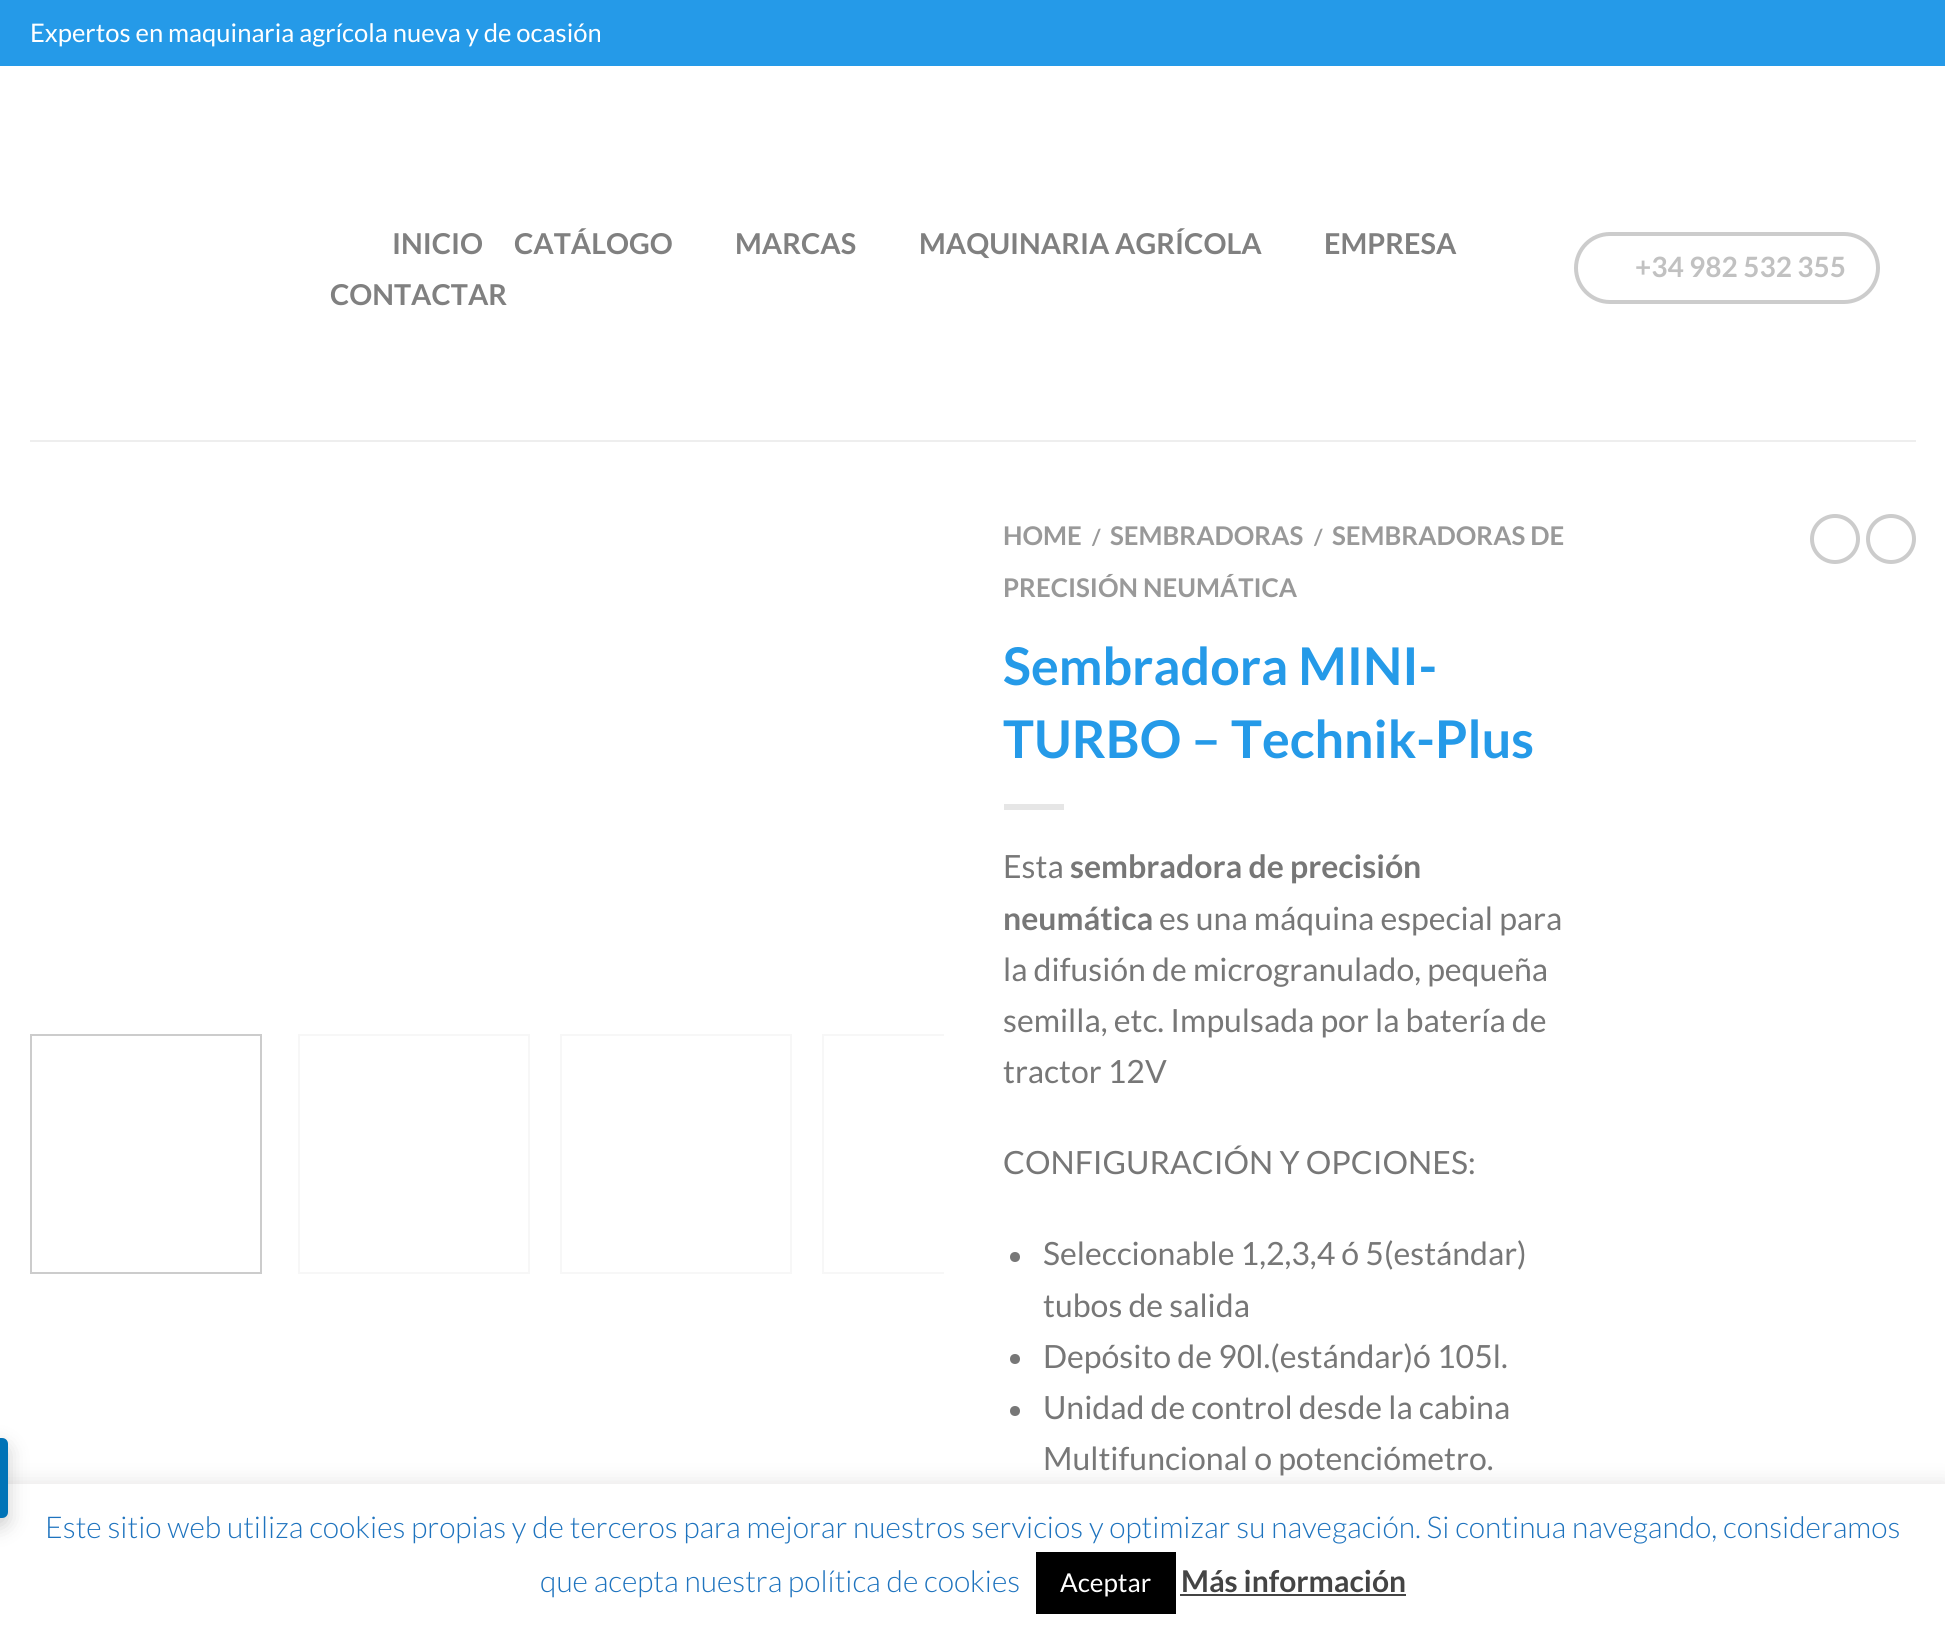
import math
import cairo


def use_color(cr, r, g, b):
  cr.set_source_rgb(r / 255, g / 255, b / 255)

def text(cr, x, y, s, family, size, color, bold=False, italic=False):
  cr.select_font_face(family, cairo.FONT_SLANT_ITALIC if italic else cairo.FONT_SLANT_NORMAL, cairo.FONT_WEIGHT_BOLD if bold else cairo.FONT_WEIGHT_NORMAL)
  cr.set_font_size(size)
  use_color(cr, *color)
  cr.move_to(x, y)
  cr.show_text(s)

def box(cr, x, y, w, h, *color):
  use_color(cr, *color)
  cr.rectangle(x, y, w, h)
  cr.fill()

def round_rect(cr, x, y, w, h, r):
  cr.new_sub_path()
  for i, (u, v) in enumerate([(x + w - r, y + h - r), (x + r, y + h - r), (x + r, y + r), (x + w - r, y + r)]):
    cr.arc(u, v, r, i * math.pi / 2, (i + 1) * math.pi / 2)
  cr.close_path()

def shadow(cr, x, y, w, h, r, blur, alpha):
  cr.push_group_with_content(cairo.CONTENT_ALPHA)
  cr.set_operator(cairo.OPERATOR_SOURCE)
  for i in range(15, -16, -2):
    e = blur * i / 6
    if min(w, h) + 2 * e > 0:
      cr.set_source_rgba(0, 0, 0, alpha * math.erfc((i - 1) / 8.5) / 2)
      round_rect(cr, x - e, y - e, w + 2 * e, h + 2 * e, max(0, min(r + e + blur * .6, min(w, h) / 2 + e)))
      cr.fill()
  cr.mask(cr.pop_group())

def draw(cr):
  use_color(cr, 255, 255, 255)
  cr.paint()
  use_color(cr, 172, 171, 171)
  shadow(cr, 0, 1482, 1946, 154, 0, 10, 0.3)
  box(cr, 0, 1484, 1945, 153, 255, 255, 255)
  use_color(cr, 0, 0, 0)
  shadow(cr, -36, 1446, 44, 80, 6, 10, 0.2)
  use_color(cr, 0, 115, 183)
  cr.new_path()
  cr.move_to(-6, 1438)
  cr.line_to(2, 1438)
  cr.curve_to(5.5, 1438, 8, 1440.5, 8, 1444)
  cr.line_to(8, 1512)
  cr.curve_to(8, 1515.5, 5.5, 1518, 2, 1518)
  cr.line_to(-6, 1518)
  cr.close_path()
  cr.fill()
  box(cr, 0, 0, 1945, 66, 37, 154, 232)
  round_rect(cr, 1576, 234, 302, 68, 34)
  use_color(cr, 204, 204, 204)
  cr.set_line_width(4)
  cr.stroke()
  box(cr, 30, 440, 1886, 2, 238, 238, 238)
  cr.rectangle(31, 1035, 230, 238)
  use_color(cr, 204, 204, 204)
  cr.set_line_width(2)
  cr.stroke()
  cr.rectangle(299, 1035, 230, 238)
  use_color(cr, 247, 247, 247)
  cr.stroke()
  cr.rectangle(561, 1035, 230, 238)
  cr.stroke()
  cr.save()
  cr.rectangle(30, 1034, 914, 264)
  cr.clip()
  cr.rectangle(823, 1035, 230, 238)
  cr.stroke()
  cr.restore()
  box(cr, 1004, 804, 60, 6, 230, 230, 230)
  use_color(cr, 119, 119, 119)
  cr.arc(1015, 1257, 5, 0, 2 * math.pi)
  cr.fill()
  cr.arc(1015, 1359, 5, 0, 2 * math.pi)
  cr.fill()
  cr.arc(1015, 1411, 5, 0, 2 * math.pi)
  cr.fill()
  cr.arc(1835, 539, 23, 0, 2 * math.pi)
  use_color(cr, 204, 204, 204)
  cr.set_line_width(4)
  cr.stroke()
  cr.arc(1891, 539, 23, 0, 2 * math.pi)
  cr.stroke()
  box(cr, 1036, 1552, 140, 62, 0, 0, 0)
  box(cr, 1180, 1594, 226, 2, 68, 68, 68)
  text(cr, 30, 42, "Expertos en maquinaria agrícola nueva y de ocasión", "Lato", 25.6, (255, 255, 255))
  text(cr, 392, 254, "INICIO", "Lato", 28.75, (128, 128, 128), bold=True)
  text(cr, 514, 254, "CATÁLOGO", "Lato", 28.75, (128, 128, 128), bold=True)
  text(cr, 735, 254, "MARCAS", "Lato", 28.75, (128, 128, 128), bold=True)
  text(cr, 919, 254, "MAQUINARIA AGRÍCOLA", "Lato", 28.75, (128, 128, 128), bold=True)
  text(cr, 1324, 254, "EMPRESA", "Lato", 28.75, (128, 128, 128), bold=True)
  text(cr, 330, 305, "CONTACTAR", "Lato", 28.75, (128, 128, 128), bold=True)
  text(cr, 1635, 277, "+34 982 532 355", "Lato", 28, (193, 193, 193), bold=True)
  text(cr, 1003, 545, "HOME", "Lato", 25.75, (153, 153, 153), bold=True)
  text(cr, 1092, 545, "/", "Lato", 22, (153, 153, 153), bold=True)
  text(cr, 1110, 545, "SEMBRADORAS", "Lato", 25.75, (153, 153, 153), bold=True)
  text(cr, 1314, 545, "/", "Lato", 22, (153, 153, 153), bold=True)
  text(cr, 1332, 545, "SEMBRADORAS DE", "Lato", 25.75, (153, 153, 153), bold=True)
  text(cr, 1003, 597, "PRECISIÓN NEUMÁTICA", "Lato", 25.75, (153, 153, 153), bold=True)
  text(cr, 1003, 685, "Sembradora MINI-", "Lato", 52, (37, 154, 232), bold=True)
  text(cr, 1003, 758, "TURBO – Technik-Plus", "Lato", 52, (37, 154, 232), bold=True)
  text(cr, 1003, 878, "Esta", "Lato", 32, (119, 119, 119))
  text(cr, 1070, 878, "sembradora de precisión", "Lato", 32, (119, 119, 119), bold=True)
  text(cr, 1003, 930, "neumática", "Lato", 32, (119, 119, 119), bold=True)
  text(cr, 1159, 930, "es una máquina especial para", "Lato", 32, (119, 119, 119))
  text(cr, 1003, 981, "la difusión de microgranulado, pequeña", "Lato", 32, (119, 119, 119))
  text(cr, 1003, 1032, "semilla, etc. Impulsada por la batería de", "Lato", 32, (119, 119, 119))
  text(cr, 1003, 1083, "tractor 12V", "Lato", 32, (119, 119, 119))
  text(cr, 1003, 1174, "CONFIGURACIÓN Y OPCIONES:", "Lato", 32, (119, 119, 119))
  text(cr, 1043, 1265, "Seleccionable 1,2,3,4 ó 5(estándar)", "Lato", 32, (119, 119, 119))
  text(cr, 1043, 1317, "tubos de salida", "Lato", 32, (119, 119, 119))
  text(cr, 1043, 1368, "Depósito de 90l.(estándar)ó 105l.", "Lato", 32, (119, 119, 119))
  text(cr, 1043, 1419, "Unidad de control desde la cabina", "Lato", 32, (119, 119, 119))
  text(cr, 1043, 1470, "Multifuncional o potenciómetro.", "Lato", 32, (119, 119, 119))
  text(cr, 45, 1538, "Este sitio web utiliza cookies propias y de terceros para mejorar nuestros servicios y optimizar su navegación. Si continua navegando, consideramos", "Lato Light", 30, (30, 115, 190))
  text(cr, 540, 1592, "que acepta nuestra política de cookies", "Lato Light", 30, (30, 115, 190))
  text(cr, 1060, 1592, "Aceptar", "Lato", 26, (255, 255, 255))
  text(cr, 1181, 1592, "Más información", "Lato", 30, (68, 68, 68), bold=True)


surface = cairo.ImageSurface(cairo.FORMAT_RGB24, 1945, 1637)
cr = cairo.Context(surface)
options = cairo.FontOptions()
options.set_hint_metrics(cairo.HINT_METRICS_OFF)
options.set_hint_style(cairo.HINT_STYLE_NONE)
cr.set_font_options(options)
cr.set_miter_limit(4)
draw(cr)
surface.write_to_png("out.png")
